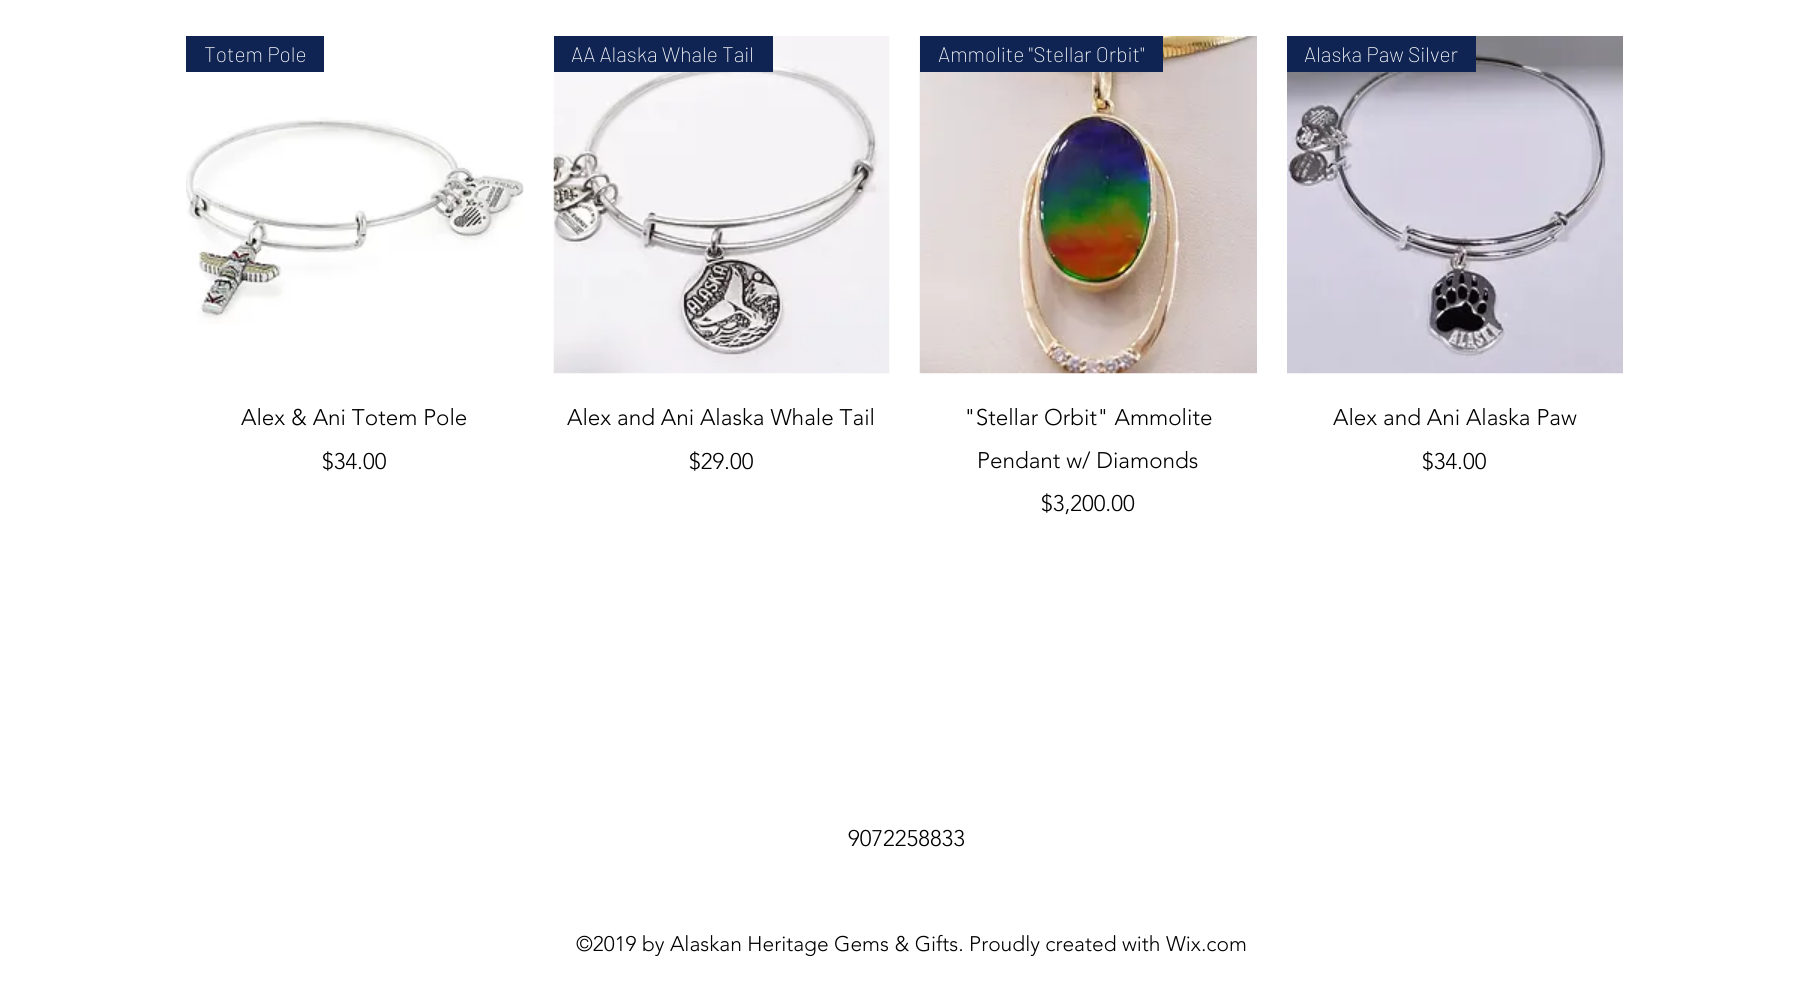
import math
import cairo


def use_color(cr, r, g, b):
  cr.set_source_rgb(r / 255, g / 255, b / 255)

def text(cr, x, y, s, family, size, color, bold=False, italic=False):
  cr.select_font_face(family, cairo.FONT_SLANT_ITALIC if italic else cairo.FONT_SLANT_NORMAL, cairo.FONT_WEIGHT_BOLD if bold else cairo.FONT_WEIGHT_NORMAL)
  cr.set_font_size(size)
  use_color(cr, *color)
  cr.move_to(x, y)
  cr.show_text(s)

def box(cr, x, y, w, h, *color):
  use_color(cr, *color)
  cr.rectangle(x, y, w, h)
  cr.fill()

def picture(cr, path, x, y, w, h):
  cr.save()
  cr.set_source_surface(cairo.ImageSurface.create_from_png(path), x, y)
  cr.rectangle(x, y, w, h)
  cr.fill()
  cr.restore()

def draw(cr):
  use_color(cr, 255, 255, 255)
  cr.paint()
  box(cr, 186, 36, 138, 36, 15, 36, 83)
  picture(cr, "img_01.png", 186, 117, 338, 207)
  picture(cr, "img_02.png", 553, 36, 337, 338)
  box(cr, 554, 36, 219, 36, 15, 36, 83)
  picture(cr, "img_03.png", 919, 36, 338, 338)
  box(cr, 920, 36, 243, 36, 15, 36, 83)
  picture(cr, "img_04.png", 1287, 36, 336, 338)
  box(cr, 1287, 36, 189, 36, 15, 36, 83)
  text(cr, 204, 62, "Totem Pole", "Barlow ExtraLight", 21, (255, 255, 255))
  text(cr, 241, 425, "Alex & Ani Totem Pole", "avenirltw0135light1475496 Light", 22.5, (0, 0, 0))
  text(cr, 322, 469, "$34.00", "avenirltw0135light1475496 Light", 22.5, (0, 0, 0))
  text(cr, 571, 62, "AA Alaska Whale Tail", "Barlow ExtraLight", 21, (255, 255, 255))
  text(cr, 567, 425, "Alex and Ani Alaska Whale Tail", "avenirltw0135light1475496 Light", 22.5, (0, 0, 0))
  text(cr, 689, 469, "$29.00", "avenirltw0135light1475496 Light", 22.5, (0, 0, 0))
  text(cr, 938, 62, "Ammolite \"Stellar Orbit\"", "Barlow ExtraLight", 21, (255, 255, 255))
  text(cr, 964, 425, "\"Stellar Orbit\" Ammolite", "avenirltw0135light1475496 Light", 22.5, (0, 0, 0))
  text(cr, 977, 468, "Pendant w/ Diamonds", "avenirltw0135light1475496 Light", 22.5, (0, 0, 0))
  text(cr, 1041, 511, "$3,200.00", "avenirltw0135light1475496 Light", 22.5, (0, 0, 0))
  text(cr, 1304, 62, "Alaska Paw Silver", "Barlow ExtraLight", 21, (255, 255, 255))
  text(cr, 1333, 425, "Alex and Ani Alaska Paw", "avenirltw0135light1475496 Light", 22.5, (0, 0, 0))
  text(cr, 1422, 469, "$34.00", "avenirltw0135light1475496 Light", 22.5, (0, 0, 0))
  text(cr, 848, 846, "9072258833", "avenirltw0135light1475496 Light", 22.5, (0, 0, 0))
  text(cr, 576, 951, "©2019 by Alaskan Heritage Gems & Gifts. Proudly created with Wix.com", "avenirltw0135light1475496 Light", 21, (0, 0, 0))


surface = cairo.ImageSurface(cairo.FORMAT_RGB24, 1808, 992)
cr = cairo.Context(surface)
options = cairo.FontOptions()
options.set_hint_metrics(cairo.HINT_METRICS_OFF)
options.set_hint_style(cairo.HINT_STYLE_NONE)
cr.set_font_options(options)
cr.set_miter_limit(4)
draw(cr)
surface.write_to_png("out.png")
